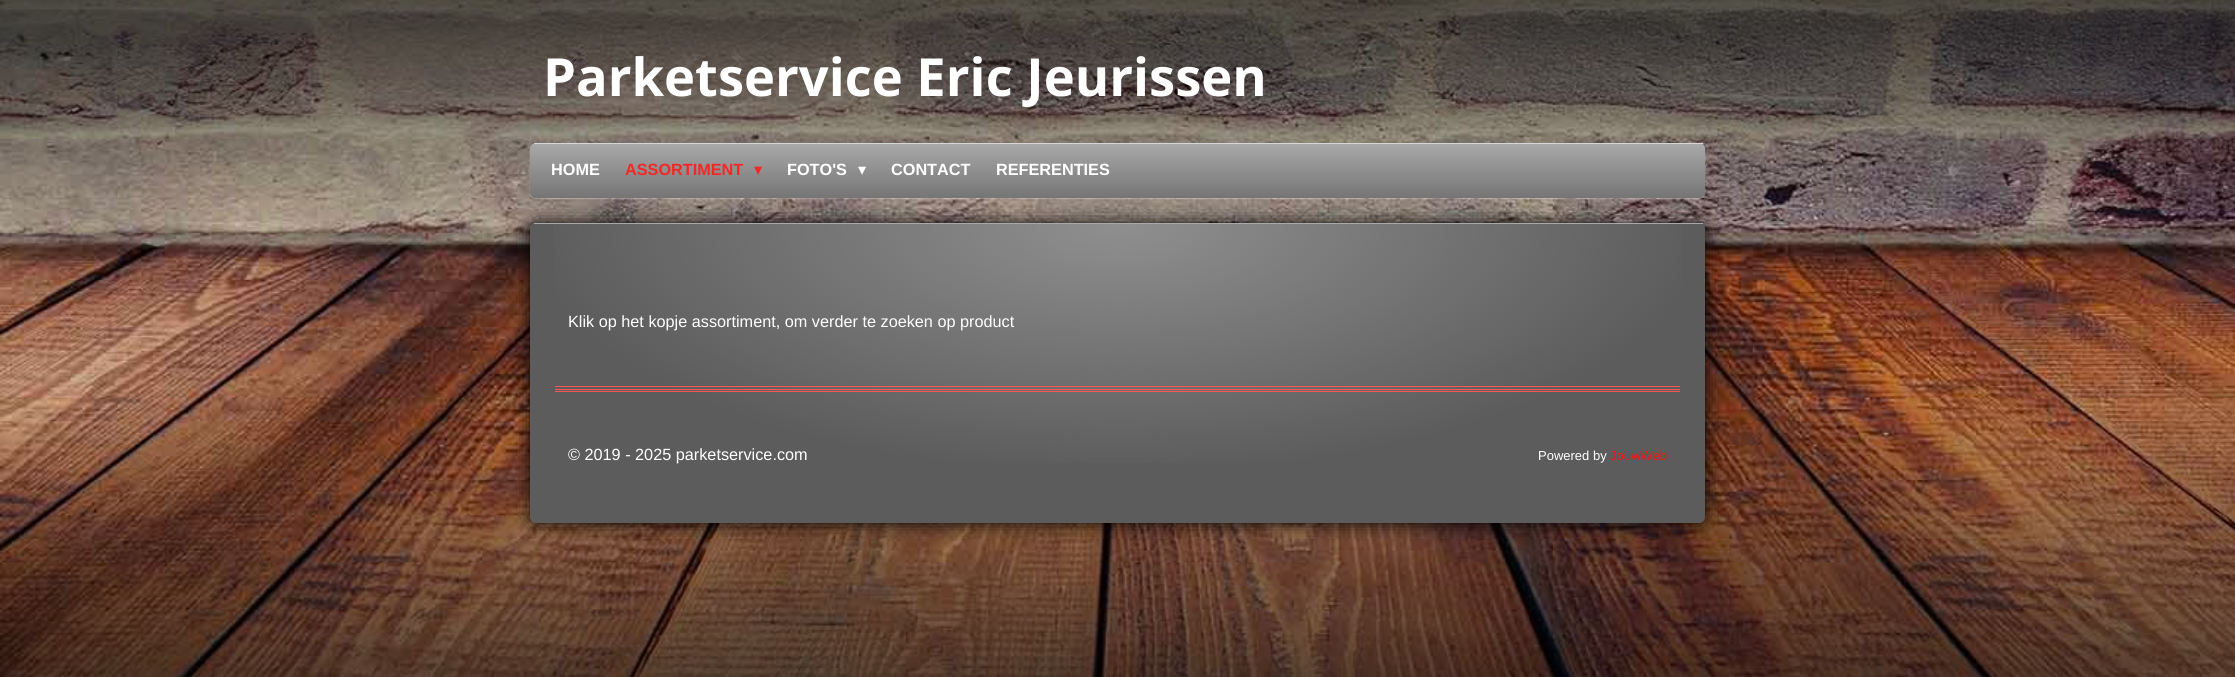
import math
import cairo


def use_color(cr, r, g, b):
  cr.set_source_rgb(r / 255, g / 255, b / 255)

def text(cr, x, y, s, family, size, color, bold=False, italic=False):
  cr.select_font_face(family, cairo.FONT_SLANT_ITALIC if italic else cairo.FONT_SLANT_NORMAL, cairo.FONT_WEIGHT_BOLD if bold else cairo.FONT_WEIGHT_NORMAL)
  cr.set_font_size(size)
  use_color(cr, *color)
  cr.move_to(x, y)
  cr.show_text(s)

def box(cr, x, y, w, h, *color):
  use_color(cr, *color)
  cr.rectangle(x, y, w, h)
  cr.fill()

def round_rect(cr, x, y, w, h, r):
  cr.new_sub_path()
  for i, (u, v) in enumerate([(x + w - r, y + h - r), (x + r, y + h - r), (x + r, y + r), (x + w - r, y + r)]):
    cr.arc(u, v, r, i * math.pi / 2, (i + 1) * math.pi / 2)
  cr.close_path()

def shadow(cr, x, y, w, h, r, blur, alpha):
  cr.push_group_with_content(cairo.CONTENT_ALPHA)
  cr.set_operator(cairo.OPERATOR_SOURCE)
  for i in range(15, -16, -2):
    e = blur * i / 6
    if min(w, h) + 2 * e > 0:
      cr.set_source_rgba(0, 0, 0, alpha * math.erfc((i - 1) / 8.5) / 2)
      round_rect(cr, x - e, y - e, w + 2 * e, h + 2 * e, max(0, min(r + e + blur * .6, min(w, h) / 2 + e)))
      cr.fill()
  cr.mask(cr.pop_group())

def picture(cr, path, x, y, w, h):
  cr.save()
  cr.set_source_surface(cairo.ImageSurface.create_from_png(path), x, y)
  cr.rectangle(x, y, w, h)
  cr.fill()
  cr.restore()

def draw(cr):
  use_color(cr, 255, 255, 255)
  cr.paint()
  picture(cr, "img_01.png", 0, 0, 2235, 677)
  cr.set_source_rgba(0, 0, 0, 0.6)
  cr.rectangle(0, 0, 2235, 25)
  cr.fill()
  use_color(cr, 255, 255, 255)
  shadow(cr, 530, 144, 1175, 55, 6, 0.5, 0.3)
  use_color(cr, 117, 117, 117)
  round_rect(cr, 530, 143, 1175, 55, 6)
  cr.fill()
  cr.save()
  round_rect(cr, 530, 143, 1175, 55, 6)
  cr.clip()
  gradient = cairo.LinearGradient(1118, 144, 1118, 90)
  gradient.add_color_stop_rgba(0, 0.459, 0.459, 0.459, 1)
  gradient.add_color_stop_rgba(1, 0.659, 0.659, 0.659, 1)
  cr.set_source(gradient)
  cr.rectangle(530, 143, 4, 1)
  cr.fill()
  gradient = cairo.LinearGradient(1118, 198, 1118, 144)
  gradient.add_color_stop_rgba(0, 0.459, 0.459, 0.459, 1)
  gradient.add_color_stop_rgba(1, 0.659, 0.659, 0.659, 1)
  cr.set_source(gradient)
  cr.new_path()
  cr.move_to(530, 144)
  cr.line_to(1705, 144)
  cr.line_to(1705, 192)
  cr.curve_to(1705, 195.5, 1702.5, 198, 1699, 198)
  cr.line_to(536, 198)
  cr.curve_to(532.5, 198, 530, 195.5, 530, 192)
  cr.close_path()
  cr.fill()
  cr.restore()
  box(cr, 534, 143, 1169, 1, 214, 214, 214)
  use_color(cr, 0, 0, 0)
  shadow(cr, 530, 223, 1175, 300, 6, 9.5, 1)
  use_color(cr, 92, 92, 92)
  round_rect(cr, 530, 223, 1175, 300, 6)
  cr.fill()
  box(cr, 534, 223, 1169, 1, 169, 169, 169)
  gradient = cairo.RadialGradient(0, 0, 0, 0, 0, 1)
  gradient.set_matrix(cairo.Matrix(1 / 588, 0, 0, 1 / 250, -1 * 1118 / 588, -1 * 224 / 250))
  gradient.add_color_stop_rgba(0, 0.561, 0.561, 0.561, 1)
  gradient.add_color_stop_rgba(1, 0.561, 0.561, 0.561, 0)
  cr.set_source(gradient)
  cr.rectangle(554, 224, 1128, 239)
  cr.fill()
  box(cr, 555, 386, 1125, 1, 246, 88, 88)
  box(cr, 555, 389, 1125, 1, 246, 88, 88)
  box(cr, 555, 391, 1125, 1, 246, 88, 88)
  text(cr, 543, 96, "Parketservice Eric Jeurissen", "Open Sans", 52.5, (255, 255, 255), bold=True)
  text(cr, 551, 175, "HOME", "Liberation Sans", 16.25, (255, 255, 255), bold=True)
  text(cr, 625, 175, "ASSORTIMENT", "Liberation Sans", 16.25, (244, 39, 39), bold=True)
  text(cr, 754, 175, "▾", "DejaVu Sans", 16.25, (244, 39, 39))
  text(cr, 787, 175, "FOTO'S", "Liberation Sans", 16.25, (255, 255, 255), bold=True)
  text(cr, 858, 175, "▾", "DejaVu Sans", 16.25, (255, 255, 255))
  text(cr, 891, 175, "CONTACT", "Liberation Sans", 16.25, (255, 255, 255), bold=True)
  text(cr, 996, 175, "REFERENTIES", "Liberation Sans", 16.25, (255, 255, 255), bold=True)
  text(cr, 568, 327, "Klik op het kopje assortiment, om verder te zoeken op product", "Liberation Sans", 16.25, (255, 255, 255))
  text(cr, 568, 460, "© 2019 - 2025 parketservice.com", "Liberation Sans", 16.25, (255, 255, 255))
  text(cr, 1538, 460, "Powered by", "Liberation Sans", 13, (255, 255, 255))
  text(cr, 1610, 460, "JouwWeb", "Liberation Sans", 13, (244, 19, 19))


surface = cairo.ImageSurface(cairo.FORMAT_RGB24, 2235, 677)
cr = cairo.Context(surface)
options = cairo.FontOptions()
options.set_hint_metrics(cairo.HINT_METRICS_OFF)
options.set_hint_style(cairo.HINT_STYLE_NONE)
cr.set_font_options(options)
cr.set_miter_limit(4)
draw(cr)
surface.write_to_png("out.png")
